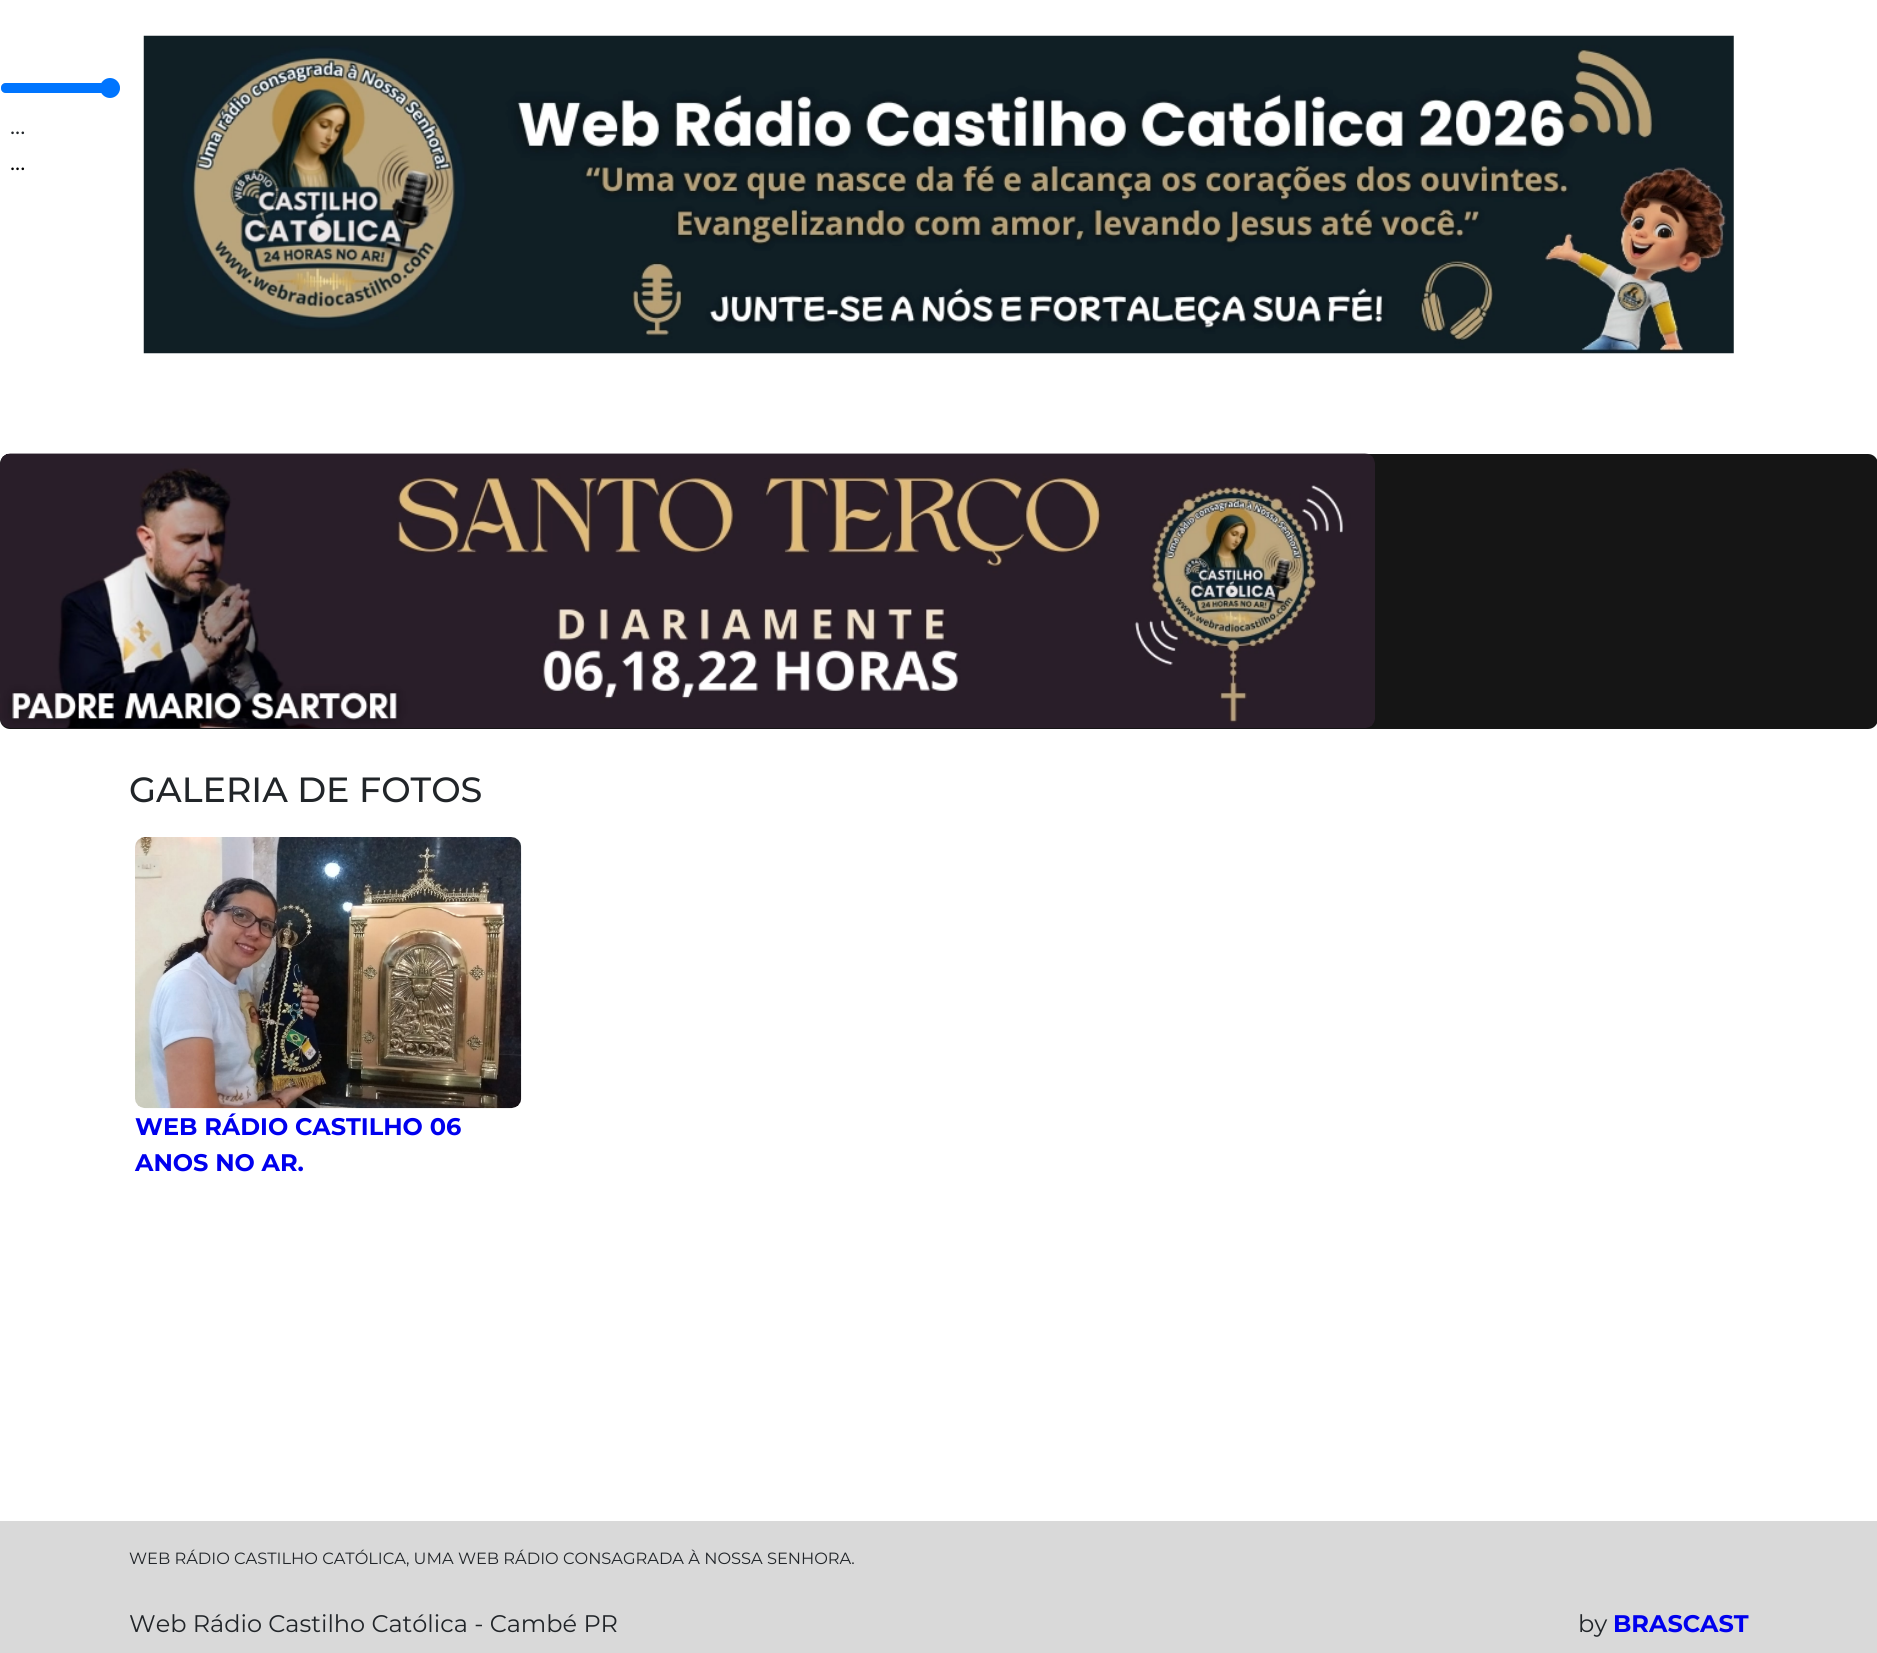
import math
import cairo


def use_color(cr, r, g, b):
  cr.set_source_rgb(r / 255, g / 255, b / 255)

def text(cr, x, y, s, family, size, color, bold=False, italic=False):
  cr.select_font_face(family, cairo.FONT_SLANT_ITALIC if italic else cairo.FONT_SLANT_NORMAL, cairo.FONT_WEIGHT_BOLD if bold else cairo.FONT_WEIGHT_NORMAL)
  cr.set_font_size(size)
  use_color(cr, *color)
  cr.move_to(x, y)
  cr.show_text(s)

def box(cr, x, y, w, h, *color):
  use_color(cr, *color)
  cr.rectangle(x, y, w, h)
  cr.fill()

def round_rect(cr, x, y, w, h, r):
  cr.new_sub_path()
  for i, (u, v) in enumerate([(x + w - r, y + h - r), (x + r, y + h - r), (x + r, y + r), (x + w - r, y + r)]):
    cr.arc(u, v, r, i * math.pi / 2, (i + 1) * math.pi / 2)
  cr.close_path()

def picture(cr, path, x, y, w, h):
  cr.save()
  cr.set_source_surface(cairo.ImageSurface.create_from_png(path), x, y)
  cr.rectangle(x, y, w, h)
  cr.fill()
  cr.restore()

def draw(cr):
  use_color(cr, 255, 255, 255)
  cr.paint()
  picture(cr, "img_01.png", 143, 35, 1591, 319)
  use_color(cr, 21, 21, 21)
  round_rect(cr, 0, 454, 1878, 275, 10)
  cr.fill()
  picture(cr, "img_02.png", 0, 453, 1375, 275)
  round_rect(cr, 1.5, 83.5, 118, 9, 4.5)
  use_color(cr, 178, 178, 178)
  cr.set_line_width(1)
  cr.stroke()
  use_color(cr, 0, 117, 255)
  cr.new_path()
  cr.move_to(6, 83)
  cr.line_to(110, 83)
  cr.line_to(110, 93)
  cr.line_to(6, 93)
  cr.curve_to(3, 93, 1, 91, 1, 88)
  cr.curve_to(1, 85, 3, 83, 6, 83)
  cr.close_path()
  cr.fill()
  cr.arc(110, 88, 10, 0, 2 * math.pi)
  cr.fill()
  picture(cr, "img_03.png", 135, 837, 387, 272)
  box(cr, 0, 1521, 1877, 132, 217, 217, 217)
  text(cr, 10, 134, "...", "Montserrat", 24, (33, 37, 41))
  text(cr, 10, 170, "...", "Montserrat", 24, (0, 0, 0))
  text(cr, 129, 802, "GALERIA DE FOTOS", "Montserrat Medium", 35, (33, 37, 41))
  text(cr, 135, 1135, "WEB RÁDIO CASTILHO 06", "Montserrat", 24, (0, 0, 238), bold=True)
  text(cr, 135, 1171, "ANOS NO AR.", "Montserrat", 24, (0, 0, 238), bold=True)
  text(cr, 129, 1564, "WEB RÁDIO CASTILHO CATÓLICA, UMA WEB RÁDIO CONSAGRADA À NOSSA SENHORA.", "Montserrat", 16.25, (33, 37, 41))
  text(cr, 129, 1632, "Web Rádio Castilho Católica - Cambé PR", "Montserrat", 24, (33, 37, 41))
  text(cr, 1578, 1632, "by", "Montserrat", 24, (33, 37, 41))
  text(cr, 1613, 1632, "BRASCAST", "Montserrat", 24, (0, 0, 238), bold=True)


surface = cairo.ImageSurface(cairo.FORMAT_RGB24, 1877, 1653)
cr = cairo.Context(surface)
options = cairo.FontOptions()
options.set_hint_metrics(cairo.HINT_METRICS_OFF)
options.set_hint_style(cairo.HINT_STYLE_NONE)
cr.set_font_options(options)
cr.set_miter_limit(4)
draw(cr)
surface.write_to_png("out.png")
